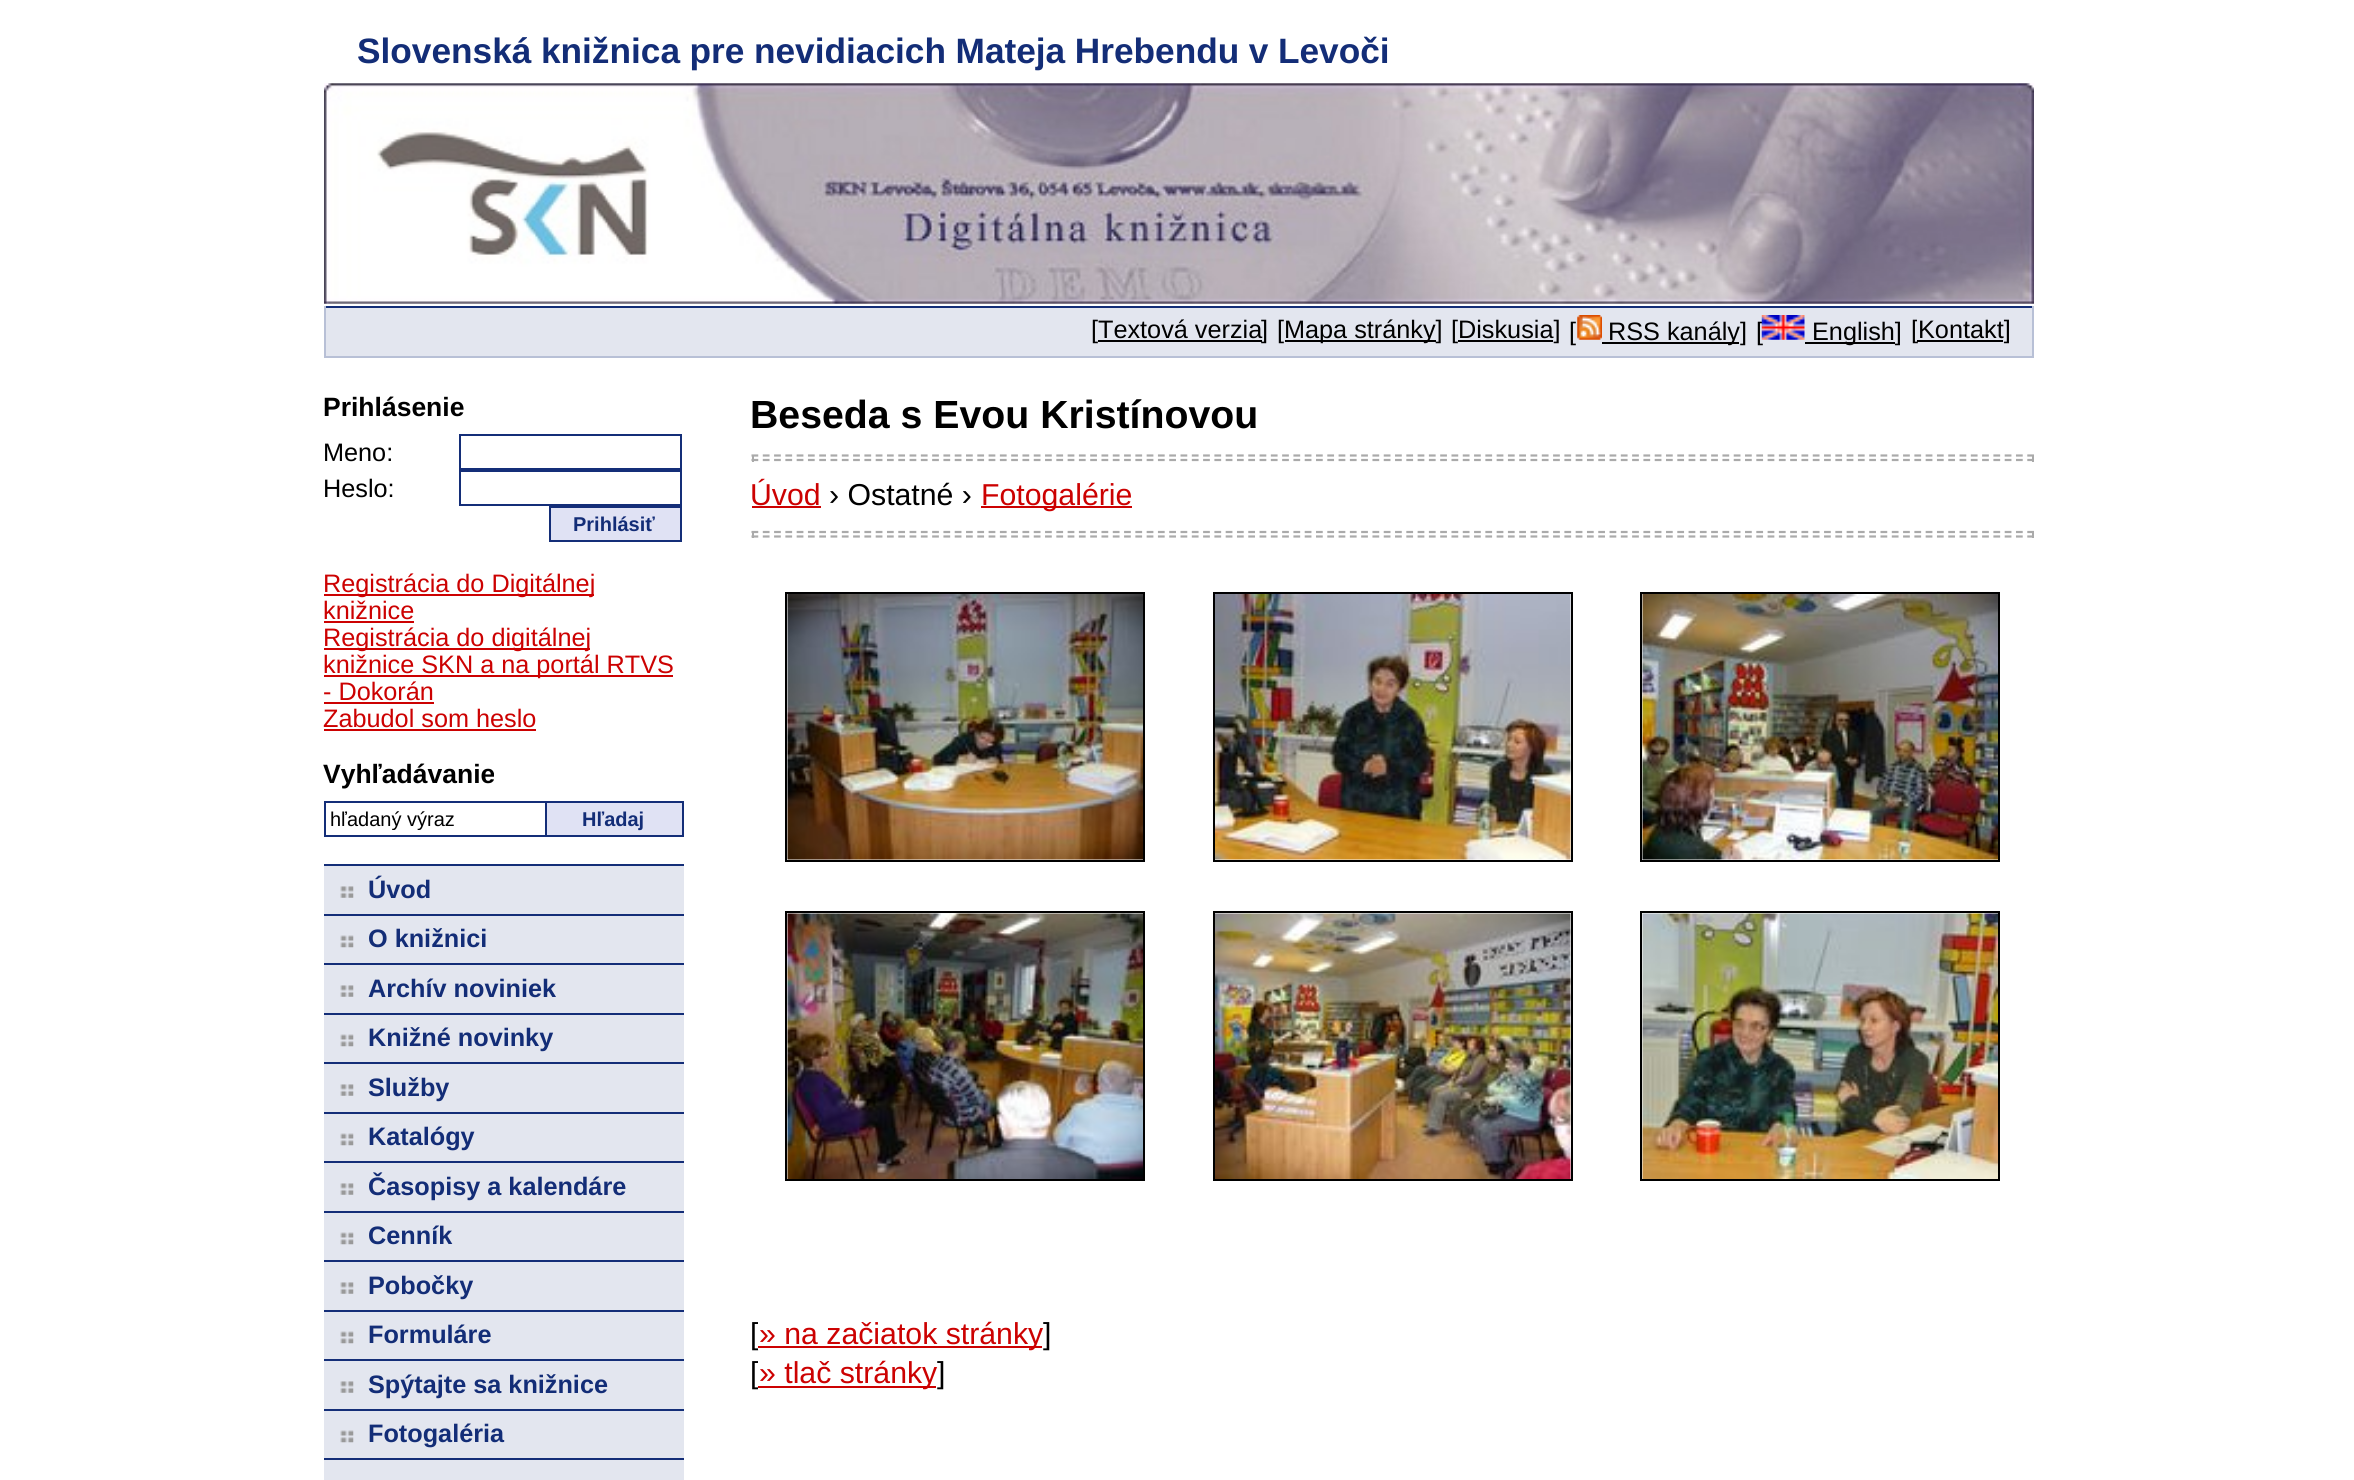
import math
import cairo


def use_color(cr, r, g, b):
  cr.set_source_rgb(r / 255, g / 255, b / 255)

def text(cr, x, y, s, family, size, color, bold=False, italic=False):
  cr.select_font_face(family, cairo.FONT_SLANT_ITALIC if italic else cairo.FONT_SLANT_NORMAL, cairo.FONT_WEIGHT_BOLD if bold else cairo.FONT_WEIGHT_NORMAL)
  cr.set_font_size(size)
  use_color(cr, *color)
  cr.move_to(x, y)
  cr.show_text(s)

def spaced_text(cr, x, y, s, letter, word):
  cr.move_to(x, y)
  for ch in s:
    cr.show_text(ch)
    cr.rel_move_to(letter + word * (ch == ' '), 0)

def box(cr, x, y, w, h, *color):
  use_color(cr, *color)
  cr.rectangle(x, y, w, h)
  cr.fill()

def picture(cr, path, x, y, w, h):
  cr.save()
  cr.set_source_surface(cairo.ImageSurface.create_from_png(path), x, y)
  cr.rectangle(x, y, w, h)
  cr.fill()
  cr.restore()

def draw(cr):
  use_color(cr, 255, 255, 255)
  cr.paint()
  picture(cr, "img_01.png", 324, 83, 1710, 221)
  box(cr, 326, 308, 1706, 48, 227, 230, 239)
  box(cr, 324, 306, 1710, 2, 19, 45, 119)
  box(cr, 2032, 306, 2, 52, 184, 192, 214)
  box(cr, 324, 356, 1710, 2, 184, 192, 214)
  box(cr, 324, 306, 2, 52, 184, 192, 214)
  box(cr, 1098, 340, 164, 2, 0, 0, 0)
  box(cr, 1285, 340, 151, 2, 0, 0, 0)
  box(cr, 1458, 340, 95, 2, 0, 0, 0)
  picture(cr, "img_02.png", 1577, 315, 25, 25)
  box(cr, 1602, 342, 137, 2, 0, 0, 0)
  box(cr, 1805, 342, 90, 2, 0, 0, 0)
  box(cr, 1917, 340, 86, 2, 0, 0, 0)
  cr.rectangle(460, 435, 221, 34)
  use_color(cr, 20, 46, 120)
  cr.stroke()
  cr.rectangle(460, 471, 221, 34)
  cr.stroke()
  use_color(cr, 224, 226, 244)
  cr.rectangle(550, 507, 131, 34)
  cr.fill_preserve()
  use_color(cr, 20, 46, 120)
  cr.stroke()
  box(cr, 324, 594, 270, 2, 204, 1, 1)
  box(cr, 324, 621, 90, 2, 204, 1, 1)
  box(cr, 324, 648, 266, 2, 204, 1, 1)
  box(cr, 324, 675, 349, 2, 204, 1, 1)
  box(cr, 324, 702, 110, 2, 204, 1, 1)
  box(cr, 324, 729, 212, 2, 204, 1, 1)
  cr.rectangle(325, 802, 358, 34)
  use_color(cr, 20, 46, 120)
  cr.stroke()
  box(cr, 545, 803, 2, 32, 20, 46, 120)
  box(cr, 547, 803, 135, 32, 224, 226, 244)
  box(cr, 324, 866, 360, 48, 227, 230, 239)
  box(cr, 324, 864, 360, 2, 20, 46, 120)
  box(cr, 324, 914, 360, 2, 20, 46, 120)
  picture(cr, "img_04.png", 340, 886, 14, 12)
  box(cr, 324, 916, 360, 47, 227, 230, 239)
  box(cr, 324, 963, 360, 2, 20, 46, 120)
  picture(cr, "img_05.png", 340, 935, 14, 13)
  box(cr, 324, 965, 360, 48, 227, 230, 239)
  box(cr, 324, 1013, 360, 2, 20, 46, 120)
  picture(cr, "img_04.png", 340, 985, 14, 12)
  box(cr, 324, 1015, 360, 47, 227, 230, 239)
  box(cr, 324, 1062, 360, 2, 20, 46, 120)
  picture(cr, "img_05.png", 340, 1034, 14, 13)
  box(cr, 324, 1064, 360, 48, 227, 230, 239)
  box(cr, 324, 1112, 360, 2, 20, 46, 120)
  picture(cr, "img_04.png", 340, 1084, 14, 12)
  box(cr, 324, 1114, 360, 47, 227, 230, 239)
  box(cr, 324, 1161, 360, 2, 20, 46, 120)
  picture(cr, "img_05.png", 340, 1133, 14, 13)
  box(cr, 324, 1163, 360, 48, 227, 230, 239)
  box(cr, 324, 1211, 360, 2, 20, 46, 120)
  picture(cr, "img_04.png", 340, 1183, 14, 12)
  box(cr, 324, 1213, 360, 47, 227, 230, 239)
  box(cr, 324, 1260, 360, 2, 20, 46, 120)
  picture(cr, "img_05.png", 340, 1232, 14, 13)
  box(cr, 324, 1262, 360, 48, 227, 230, 239)
  box(cr, 324, 1310, 360, 2, 20, 46, 120)
  picture(cr, "img_04.png", 340, 1282, 14, 12)
  box(cr, 324, 1312, 360, 47, 227, 230, 239)
  box(cr, 324, 1359, 360, 2, 20, 46, 120)
  picture(cr, "img_05.png", 340, 1331, 14, 13)
  box(cr, 324, 1361, 360, 48, 227, 230, 239)
  box(cr, 324, 1409, 360, 2, 20, 46, 120)
  picture(cr, "img_04.png", 340, 1381, 14, 12)
  box(cr, 324, 1411, 360, 47, 227, 230, 239)
  box(cr, 324, 1458, 360, 2, 20, 46, 120)
  picture(cr, "img_05.png", 340, 1430, 14, 13)
  box(cr, 324, 1460, 360, 20, 227, 230, 239)
  cr.new_path()
  cr.move_to(751.5, 455.5)
  cr.line_to(2034, 455.5)
  use_color(cr, 170, 170, 170)
  cr.set_line_width(2.2)
  cr.set_dash([6.75, 4.54])
  cr.stroke()
  box(cr, 2032, 455, 2, 7, 170, 170, 170)
  cr.new_path()
  cr.move_to(751.5, 460)
  cr.line_to(2034, 460)
  cr.stroke()
  box(cr, 752, 455, 2, 7, 170, 170, 170)
  box(cr, 752, 506, 69, 2, 204, 1, 1)
  box(cr, 981, 506, 151, 2, 204, 1, 1)
  cr.new_path()
  cr.move_to(751.5, 532)
  cr.line_to(2034, 532)
  use_color(cr, 170, 170, 170)
  cr.stroke()
  box(cr, 2032, 531, 2, 7, 170, 170, 170)
  cr.new_path()
  cr.move_to(751.5, 536.5)
  cr.line_to(2034, 536.5)
  cr.stroke()
  box(cr, 752, 531, 2, 7, 170, 170, 170)
  cr.rectangle(786, 593, 358, 268)
  use_color(cr, 0, 0, 0)
  cr.set_line_width(2)
  cr.set_dash([])
  cr.stroke()
  picture(cr, "img_06.png", 787, 594, 356, 266)
  cr.rectangle(1214, 593, 358, 268)
  cr.stroke()
  picture(cr, "img_07.png", 1215, 594, 356, 266)
  cr.rectangle(1641, 593, 358, 268)
  cr.stroke()
  picture(cr, "img_08.png", 1642, 594, 356, 266)
  cr.rectangle(786, 912, 358, 268)
  cr.stroke()
  picture(cr, "img_09.png", 787, 913, 356, 266)
  cr.rectangle(1214, 912, 358, 268)
  cr.stroke()
  picture(cr, "img_10.png", 1215, 913, 356, 266)
  cr.rectangle(1641, 912, 358, 268)
  cr.stroke()
  picture(cr, "img_11.png", 1642, 913, 356, 266)
  cr.select_font_face("Liberation Sans", cairo.FONT_SLANT_NORMAL, cairo.FONT_WEIGHT_BOLD)
  cr.set_font_size(35.25)
  use_color(cr, 19, 45, 119)
  spaced_text(cr, 357, 63, "Slovenská knižnica pre nevidiacich Mateja Hrebendu v Levoči", 0, -0.25)
  text(cr, 1091, 338, "[Textová verzia", "Liberation Sans", 25.25, (0, 0, 0))
  text(cr, 1261, 338, "]", "Liberation Sans", 25.25, (0, 0, 0))
  text(cr, 1277, 338, "[", "Liberation Sans", 25.25, (0, 0, 0))
  text(cr, 1284, 338, "Mapa stránky]", "Liberation Sans", 25.25, (0, 0, 0))
  text(cr, 1451, 338, "[Diskusia]", "Liberation Sans", 25.25, (0, 0, 0))
  box(cr, 1458, 319, 1, 3, 227, 230, 239)
  text(cr, 1569, 340, "[", "Liberation Sans", 25.25, (0, 0, 0))
  text(cr, 1608, 340, "RSS kanály]", "Liberation Sans", 25.25, (0, 0, 0))
  text(cr, 1756, 340, "[", "Liberation Sans", 25.25, (0, 0, 0))
  text(cr, 1812, 340, "English]", "Liberation Sans", 25.25, (0, 0, 0))
  box(cr, 1762, 321, 1, 3, 227, 230, 239)
  picture(cr, "img_03.png", 1761, 315, 44, 25)
  text(cr, 1911, 338, "[Kontakt]", "Liberation Sans", 25.25, (0, 0, 0))
  box(cr, 1917, 319, 1, 3, 227, 230, 239)
  text(cr, 323, 416, "Prihlásenie", "Liberation Sans", 26.5, (0, 0, 0), bold=True)
  text(cr, 323, 461, "Meno:", "Liberation Sans", 25.25, (0, 0, 0))
  text(cr, 323, 497, "Heslo:", "Liberation Sans", 25.25, (0, 0, 0))
  text(cr, 573, 531, "Prihlásiť", "Liberation Sans", 20, (19, 45, 119), bold=True)
  text(cr, 323, 592, "Registrácia do Digitálnej", "Liberation Sans", 25.25, (204, 1, 1))
  text(cr, 323, 619, "knižnice", "Liberation Sans", 25.25, (204, 1, 1))
  text(cr, 323, 646, "Registrácia do digitálnej", "Liberation Sans", 25.25, (204, 1, 1))
  text(cr, 323, 673, "knižnice SKN a na portál RTVS", "Liberation Sans", 25.25, (204, 1, 1))
  text(cr, 323, 700, "- Dokorán", "Liberation Sans", 25.25, (204, 1, 1))
  text(cr, 323, 727, "Zabudol som heslo", "Liberation Sans", 25.25, (204, 1, 1))
  text(cr, 323, 783, "Vyhľadávanie", "Liberation Sans", 26.5, (0, 0, 0), bold=True)
  cr.save()
  cr.rectangle(331, 808, 209, 22)
  cr.clip()
  text(cr, 330, 826, "hľadaný výraz", "Liberation Sans", 20, (0, 0, 0))
  cr.restore()
  text(cr, 582, 826, "Hľadaj", "Liberation Sans", 20, (19, 45, 119), bold=True)
  text(cr, 368, 898, "Úvod", "Liberation Sans", 25.25, (19, 45, 119), bold=True)
  text(cr, 368, 947, "O knižnici", "Liberation Sans", 25.25, (19, 45, 119), bold=True)
  text(cr, 368, 997, "Archív noviniek", "Liberation Sans", 25.25, (19, 45, 119), bold=True)
  text(cr, 368, 1046, "Knižné novinky", "Liberation Sans", 25.25, (19, 45, 119), bold=True)
  text(cr, 368, 1096, "Služby", "Liberation Sans", 25.25, (19, 45, 119), bold=True)
  text(cr, 368, 1145, "Katalógy", "Liberation Sans", 25.25, (19, 45, 119), bold=True)
  text(cr, 368, 1195, "Časopisy a kalendáre", "Liberation Sans", 25.25, (19, 45, 119), bold=True)
  text(cr, 368, 1244, "Cenník", "Liberation Sans", 25.25, (19, 45, 119), bold=True)
  text(cr, 368, 1294, "Pobočky", "Liberation Sans", 25.25, (19, 45, 119), bold=True)
  text(cr, 368, 1343, "Formuláre", "Liberation Sans", 25.25, (19, 45, 119), bold=True)
  text(cr, 368, 1393, "Spýtajte sa knižnice", "Liberation Sans", 25.25, (19, 45, 119), bold=True)
  text(cr, 368, 1442, "Fotogaléria", "Liberation Sans", 25.25, (19, 45, 119), bold=True)
  text(cr, 750, 428, "Beseda s Evou Kristínovou", "Liberation Sans", 39.25, (0, 0, 0), bold=True)
  text(cr, 750, 505, "Úvod", "Liberation Sans", 30.25, (204, 1, 1))
  text(cr, 829, 505, "› Ostatné ›", "Liberation Sans", 30.25, (0, 0, 0))
  text(cr, 981, 505, "Fotogalérie", "Liberation Sans", 30.25, (204, 1, 1))
  text(cr, 750, 1344, "[", "Liberation Sans", 30.25, (0, 0, 0))
  box(cr, 758, 1322, 1, 28, 255, 255, 255)
  box(cr, 758, 1346, 284, 2, 204, 1, 1)
  text(cr, 759, 1344, "» na začiatok stránky", "Liberation Sans", 30.25, (204, 1, 1))
  text(cr, 1043, 1344, "]", "Liberation Sans", 30.25, (0, 0, 0))
  text(cr, 750, 1383, "[", "Liberation Sans", 30.25, (0, 0, 0))
  box(cr, 758, 1361, 1, 29, 255, 255, 255)
  box(cr, 758, 1386, 178, 2, 204, 1, 1)
  text(cr, 759, 1383, "» tlač stránky", "Liberation Sans", 30.25, (204, 1, 1))
  text(cr, 937, 1383, "]", "Liberation Sans", 30.25, (0, 0, 0))


surface = cairo.ImageSurface(cairo.FORMAT_RGB24, 2354, 1480)
cr = cairo.Context(surface)
options = cairo.FontOptions()
options.set_hint_metrics(cairo.HINT_METRICS_OFF)
options.set_hint_style(cairo.HINT_STYLE_NONE)
cr.set_font_options(options)
cr.set_miter_limit(4)
draw(cr)
surface.write_to_png("out.png")
